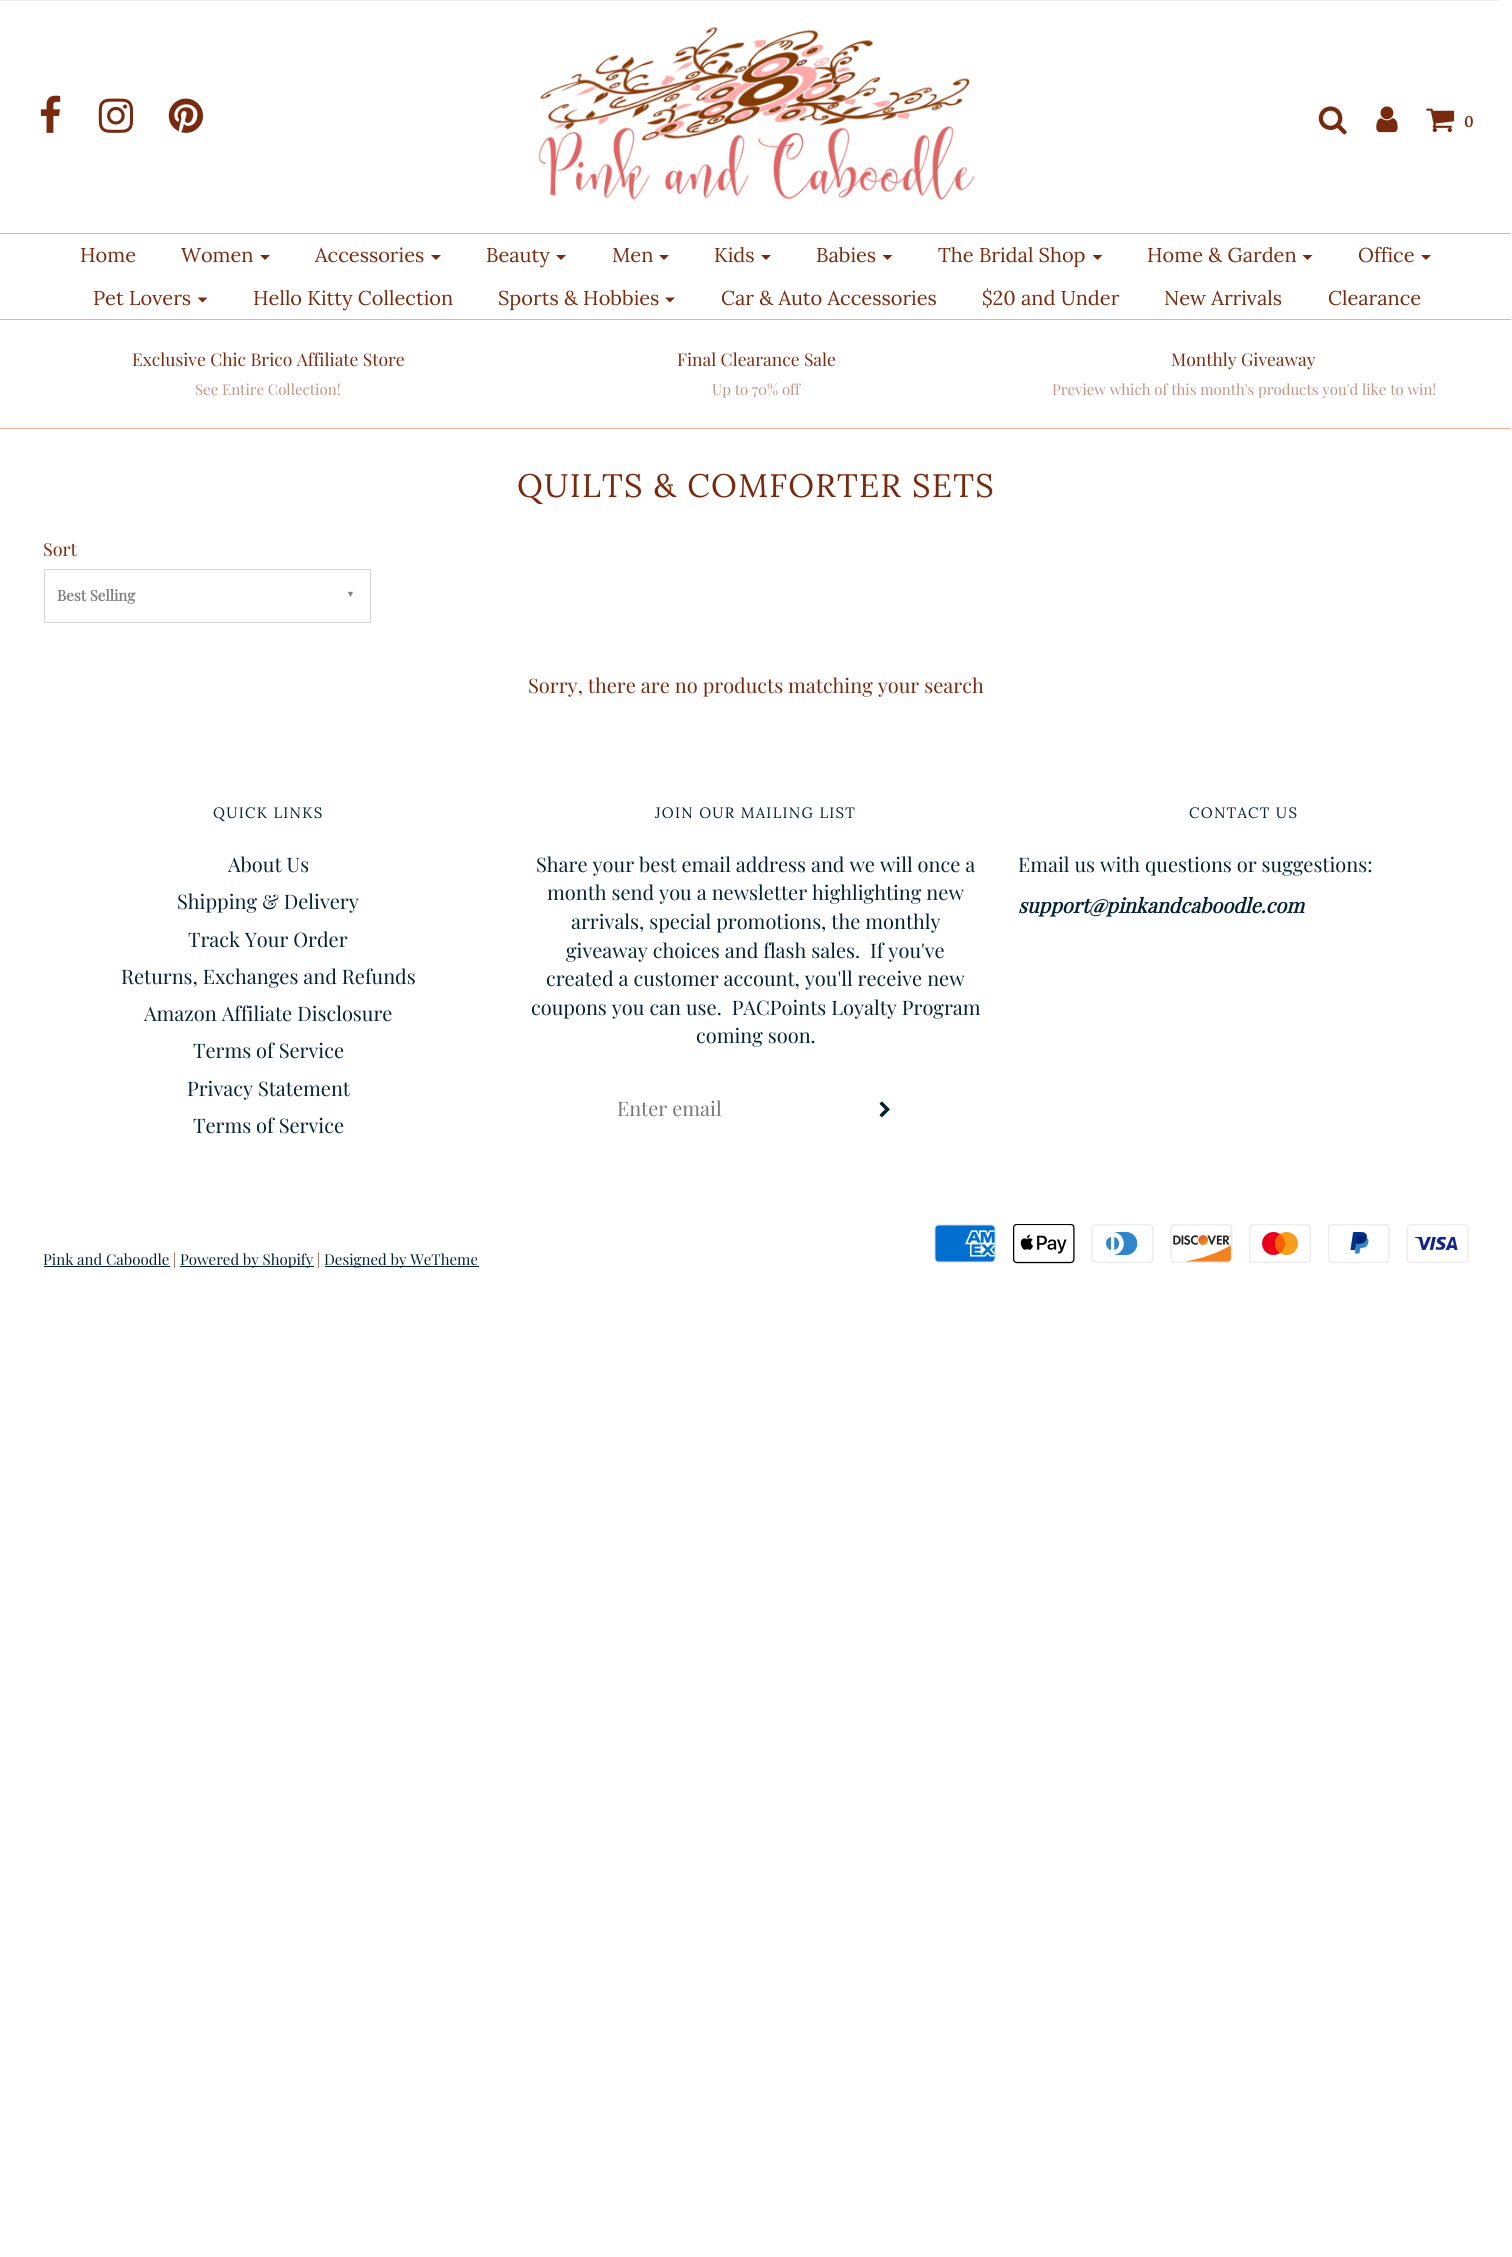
import math
import cairo


def use_color(cr, r, g, b):
  cr.set_source_rgb(r / 255, g / 255, b / 255)

def text(cr, x, y, s, family, size, color, bold=False, italic=False):
  cr.select_font_face(family, cairo.FONT_SLANT_ITALIC if italic else cairo.FONT_SLANT_NORMAL, cairo.FONT_WEIGHT_BOLD if bold else cairo.FONT_WEIGHT_NORMAL)
  cr.set_font_size(size)
  use_color(cr, *color)
  cr.move_to(x, y)
  cr.show_text(s)

def spaced_text(cr, x, y, s, letter, word):
  cr.move_to(x, y)
  for ch in s:
    cr.show_text(ch)
    cr.rel_move_to(letter + word * (ch == ' '), 0)

def box(cr, x, y, w, h, *color):
  use_color(cr, *color)
  cr.rectangle(x, y, w, h)
  cr.fill()

def picture(cr, path, x, y, w, h):
  cr.save()
  cr.set_source_surface(cairo.ImageSurface.create_from_png(path), x, y)
  cr.rectangle(x, y, w, h)
  cr.fill()
  cr.restore()

def draw(cr):
  use_color(cr, 255, 255, 255)
  cr.paint()
  box(cr, 0, 0, 1499, 1, 238, 238, 238)
  picture(cr, "img_01.png", 40, 95, 21, 38)
  picture(cr, "img_02.png", 98, 98, 36, 35)
  picture(cr, "img_03.png", 168, 98, 35, 35)
  picture(cr, "img_04.png", 538, 26, 437, 175)
  picture(cr, "img_05.png", 1318, 106, 29, 29)
  picture(cr, "img_06.png", 1376, 106, 22, 27)
  picture(cr, "img_07.png", 1426, 108, 29, 25)
  box(cr, 0, 233, 1511, 1, 243, 172, 147)
  box(cr, 0, 319, 1511, 1, 243, 172, 147)
  use_color(cr, 121, 42, 14)
  cr.new_path()
  cr.move_to(260, 255)
  cr.line_to(270, 255)
  cr.line_to(265, 260)
  cr.close_path()
  cr.fill()
  cr.new_path()
  cr.move_to(431, 255)
  cr.line_to(441, 255)
  cr.line_to(436, 260)
  cr.close_path()
  cr.fill()
  cr.new_path()
  cr.move_to(556, 255)
  cr.line_to(566, 255)
  cr.line_to(561, 260)
  cr.close_path()
  cr.fill()
  cr.new_path()
  cr.move_to(659, 255)
  cr.line_to(669, 255)
  cr.line_to(664, 260)
  cr.close_path()
  cr.fill()
  cr.new_path()
  cr.move_to(761, 255)
  cr.line_to(771, 255)
  cr.line_to(766, 260)
  cr.close_path()
  cr.fill()
  cr.new_path()
  cr.move_to(882.5, 255)
  cr.line_to(892.5, 255)
  cr.line_to(887.5, 260)
  cr.close_path()
  cr.fill()
  cr.new_path()
  cr.move_to(1092.5, 255)
  cr.line_to(1102.5, 255)
  cr.line_to(1097.5, 260)
  cr.close_path()
  cr.fill()
  cr.new_path()
  cr.move_to(1302.5, 255)
  cr.line_to(1312.5, 255)
  cr.line_to(1307.5, 260)
  cr.close_path()
  cr.fill()
  cr.new_path()
  cr.move_to(1421, 255)
  cr.line_to(1431, 255)
  cr.line_to(1426, 260)
  cr.close_path()
  cr.fill()
  cr.new_path()
  cr.move_to(197.5, 297.5)
  cr.line_to(207.5, 297.5)
  cr.line_to(202.5, 302.5)
  cr.close_path()
  cr.fill()
  cr.new_path()
  cr.move_to(665, 297.5)
  cr.line_to(675, 297.5)
  cr.line_to(670, 302.5)
  cr.close_path()
  cr.fill()
  box(cr, 0, 428, 1511, 1, 243, 172, 147)
  cr.rectangle(44.5, 569.5, 326, 53)
  use_color(cr, 212, 212, 212)
  cr.set_line_width(1)
  cr.stroke()
  picture(cr, "img_08.png", 879, 1101, 11, 17)
  box(cr, 44, 1266, 126, 1, 3, 33, 51)
  box(cr, 180, 1266, 134, 1, 3, 33, 51)
  box(cr, 325, 1266, 154, 1, 3, 33, 51)
  picture(cr, "img_09.png", 934, 1224, 62, 39)
  picture(cr, "img_10.png", 1013, 1224, 62, 40)
  picture(cr, "img_11.png", 1091, 1224, 63, 39)
  picture(cr, "img_12.png", 1170, 1224, 63, 39)
  picture(cr, "img_13.png", 1249, 1224, 62, 39)
  picture(cr, "img_14.png", 1328, 1224, 62, 39)
  picture(cr, "img_15.png", 1406, 1224, 63, 39)
  text(cr, 1464, 127, "0", "Lora", 15, (121, 42, 14), bold=True)
  text(cr, 80, 262, "Home", "Lora", 20, (121, 42, 14))
  text(cr, 181, 262, "Women", "Lora", 20, (121, 42, 14))
  text(cr, 315, 262, "Accessories", "Lora", 20, (121, 42, 14))
  text(cr, 486, 262, "Beauty", "Lora", 20, (121, 42, 14))
  text(cr, 612, 262, "Men", "Lora", 20, (121, 42, 14))
  text(cr, 714, 262, "Kids", "Lora", 20, (121, 42, 14))
  text(cr, 816, 262, "Babies", "Lora", 20, (121, 42, 14))
  text(cr, 938, 262, "The Bridal Shop", "Lora", 20, (121, 42, 14))
  text(cr, 1147, 262, "Home & Garden", "Lora", 20, (121, 42, 14))
  text(cr, 1358, 262, "Office", "Lora", 20, (121, 42, 14))
  text(cr, 93, 305, "Pet Lovers", "Lora", 20, (121, 42, 14))
  text(cr, 253, 305, "Hello Kitty Collection", "Lora", 20, (121, 42, 14))
  text(cr, 498, 305, "Sports & Hobbies", "Lora", 20, (121, 42, 14))
  text(cr, 721, 305, "Car & Auto Accessories", "Lora", 20, (121, 42, 14))
  text(cr, 982, 305, "$20 and Under", "Lora", 20, (121, 42, 14))
  text(cr, 1164, 305, "New Arrivals", "Lora", 20, (121, 42, 14))
  text(cr, 1328, 305, "Clearance", "Lora", 20, (121, 42, 14))
  text(cr, 132, 366, "Exclusive Chic Brico Affiliate Store", "Playfair Display", 17.5, (121, 42, 14))
  text(cr, 195, 395, "See Entire Collection!", "Playfair Display", 15, (188, 149, 135))
  text(cr, 677, 366, "Final Clearance Sale", "Playfair Display", 17.5, (121, 42, 14))
  text(cr, 712, 395, "Up to 70% off", "Playfair Display", 15, (188, 149, 135))
  text(cr, 1171, 366, "Monthly Giveaway", "Playfair Display", 17.5, (121, 42, 14))
  text(cr, 1052, 395, "Preview which of this month's products you'd like to win!", "Playfair Display", 15, (188, 149, 135))
  cr.select_font_face("Lora")
  cr.set_font_size(32.5)
  use_color(cr, 121, 42, 14)
  spaced_text(cr, 517, 497, "QUILTS & COMFORTER SETS", 1.25, 0)
  text(cr, 43, 556, "Sort", "Playfair Display", 18, (121, 42, 14))
  text(cr, 57, 601, "Best Selling", "Playfair Display", 15, (128, 128, 128), bold=True)
  text(cr, 346, 597, "▼", "Liberation Serif", 9, (128, 128, 128), bold=True)
  text(cr, 528, 693, "Sorry, there are no products matching your search", "Playfair Display", 20, (121, 42, 14))
  cr.select_font_face("Lora")
  cr.set_font_size(15)
  use_color(cr, 3, 33, 51)
  spaced_text(cr, 213, 818, "QUICK LINKS", 1.25, 0)
  text(cr, 228, 872, "About Us", "Playfair Display", 20, (3, 33, 51))
  text(cr, 177, 909, "Shipping & Delivery", "Playfair Display", 20, (3, 33, 51))
  text(cr, 188, 947, "Track Your Order", "Playfair Display", 20, (3, 33, 51))
  text(cr, 121, 984, "Returns, Exchanges and Refunds", "Playfair Display", 20, (3, 33, 51))
  text(cr, 144, 1021, "Amazon Affiliate Disclosure", "Playfair Display", 20, (3, 33, 51))
  text(cr, 193, 1058, "Terms of Service", "Playfair Display", 20, (3, 33, 51))
  text(cr, 187, 1096, "Privacy Statement", "Playfair Display", 20, (3, 33, 51))
  text(cr, 193, 1133, "Terms of Service", "Playfair Display", 20, (3, 33, 51))
  cr.select_font_face("Lora")
  cr.set_font_size(15)
  spaced_text(cr, 655, 818, "JOIN OUR MAILING LIST", 1.25, 0)
  text(cr, 536, 872, "Share your best email address and we will once a", "Playfair Display", 20, (3, 33, 51))
  text(cr, 547, 900, "month send you a newsletter highlighting new", "Playfair Display", 20, (3, 33, 51))
  text(cr, 571, 929, "arrivals, special promotions, the monthly", "Playfair Display", 20, (3, 33, 51))
  text(cr, 566, 958, "giveaway choices and flash sales.  If you've", "Playfair Display", 20, (3, 33, 51))
  text(cr, 546, 986, "created a customer account, you'll receive new", "Playfair Display", 20, (3, 33, 51))
  text(cr, 531, 1015, "coupons you can use.  PACPoints Loyalty Program", "Playfair Display", 20, (3, 33, 51))
  text(cr, 696, 1043, "coming soon.", "Playfair Display", 20, (3, 33, 51))
  text(cr, 617, 1116, "Enter email", "Playfair Display", 20, (117, 117, 117))
  cr.select_font_face("Lora")
  cr.set_font_size(15)
  use_color(cr, 3, 33, 51)
  spaced_text(cr, 1189, 818, "CONTACT US", 1.25, 0)
  text(cr, 1018, 872, "Email us with questions or suggestions:", "Playfair Display", 20, (3, 33, 51))
  text(cr, 1018, 913, "support@pinkandcaboodle.com", "Playfair Display", 20, (3, 33, 51), bold=True, italic=True)
  text(cr, 43, 1265, "Pink and Caboodle", "Playfair Display", 15, (3, 33, 51))
  text(cr, 173, 1265, "|", "Playfair Display", 15, (121, 42, 14))
  text(cr, 180, 1265, "Powered by Shopify", "Playfair Display", 15, (3, 33, 51))
  text(cr, 317, 1265, "|", "Playfair Display", 15, (121, 42, 14))
  text(cr, 324, 1265, "Designed by WeTheme", "Playfair Display", 15, (3, 33, 51))


surface = cairo.ImageSurface(cairo.FORMAT_RGB24, 1512, 2257)
cr = cairo.Context(surface)
options = cairo.FontOptions()
options.set_hint_metrics(cairo.HINT_METRICS_OFF)
options.set_hint_style(cairo.HINT_STYLE_NONE)
cr.set_font_options(options)
cr.set_miter_limit(4)
draw(cr)
surface.write_to_png("out.png")
